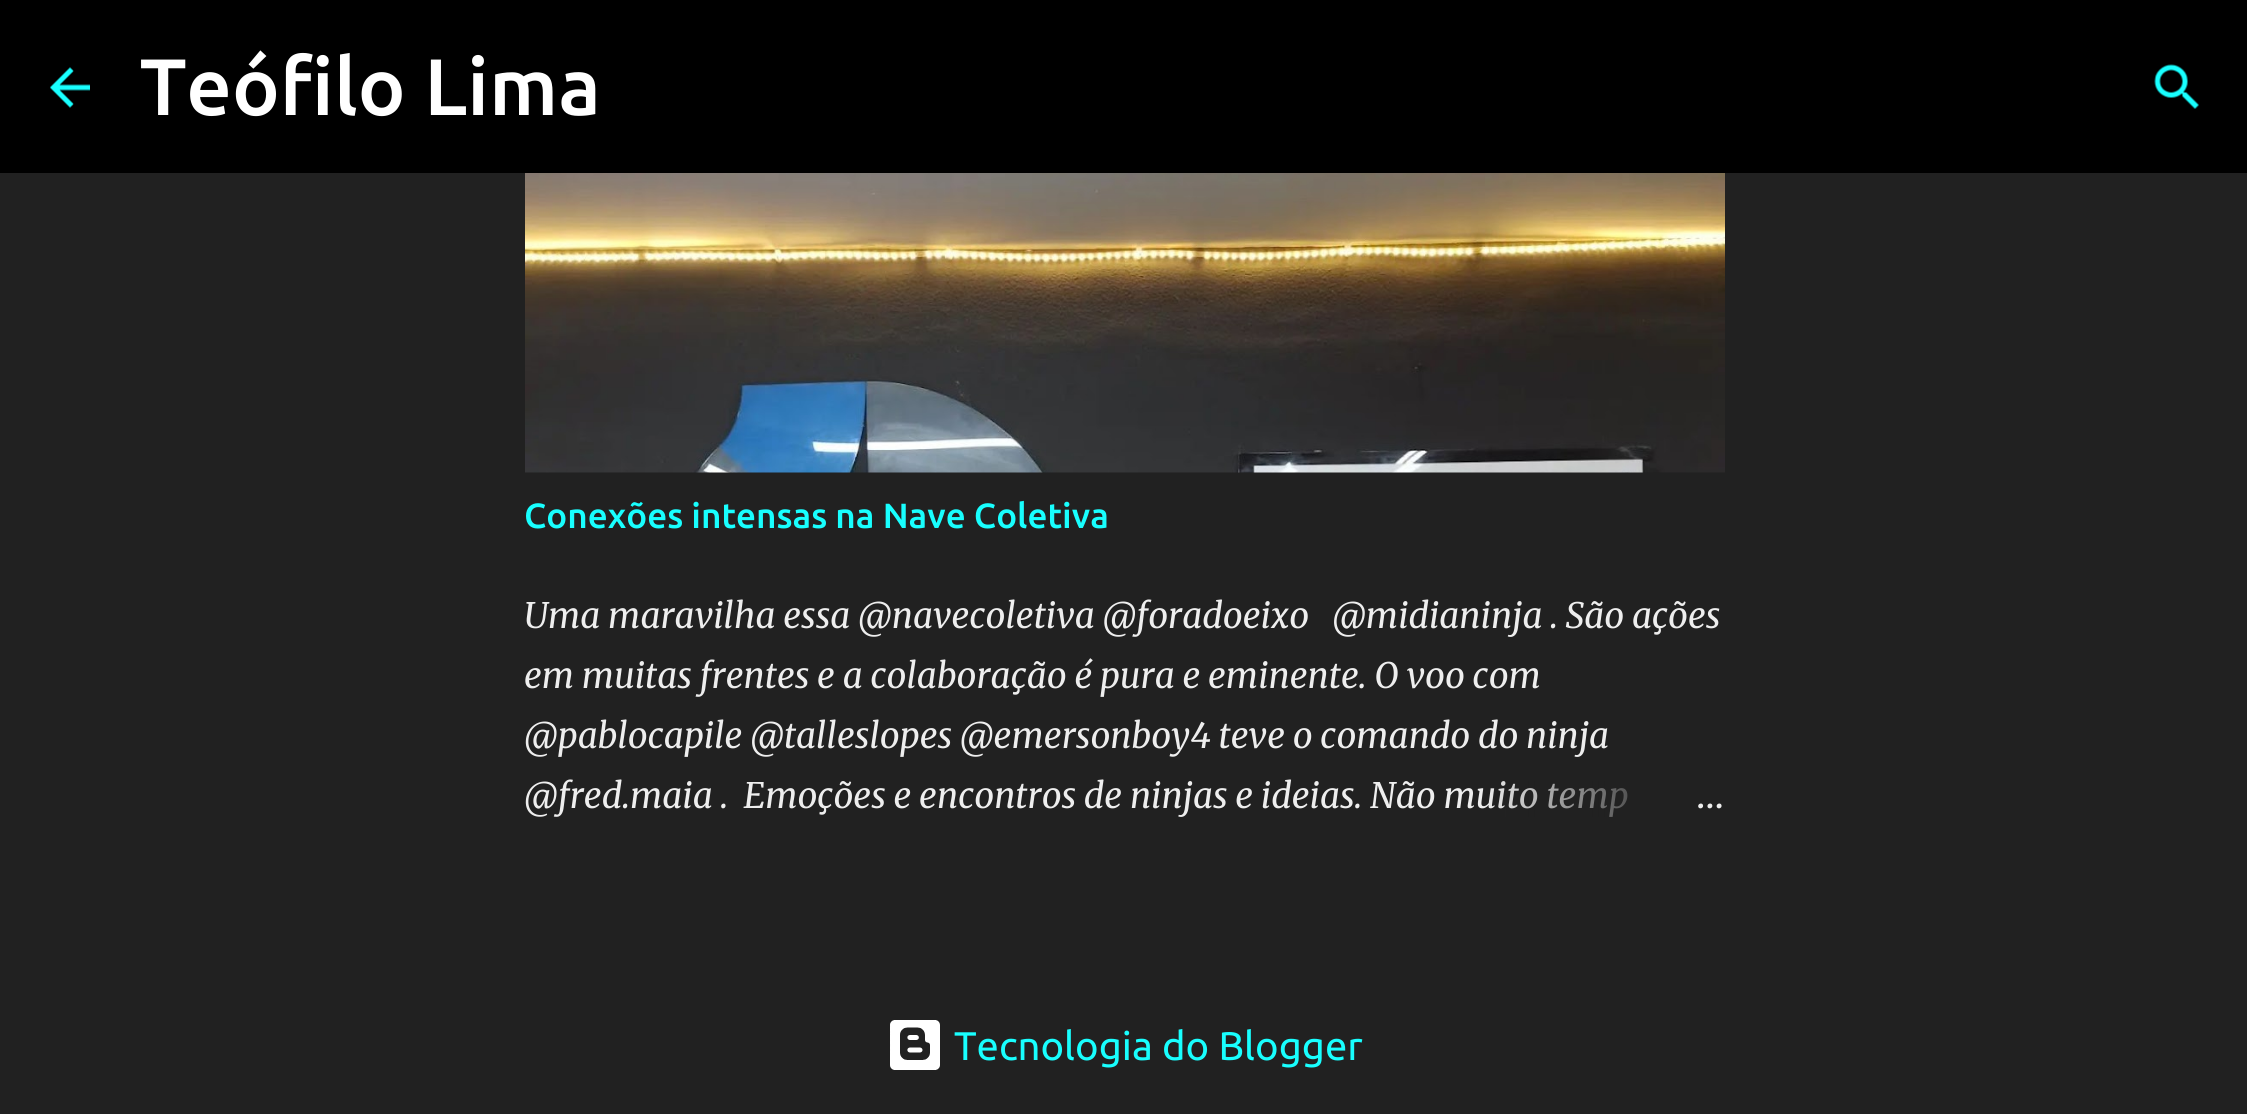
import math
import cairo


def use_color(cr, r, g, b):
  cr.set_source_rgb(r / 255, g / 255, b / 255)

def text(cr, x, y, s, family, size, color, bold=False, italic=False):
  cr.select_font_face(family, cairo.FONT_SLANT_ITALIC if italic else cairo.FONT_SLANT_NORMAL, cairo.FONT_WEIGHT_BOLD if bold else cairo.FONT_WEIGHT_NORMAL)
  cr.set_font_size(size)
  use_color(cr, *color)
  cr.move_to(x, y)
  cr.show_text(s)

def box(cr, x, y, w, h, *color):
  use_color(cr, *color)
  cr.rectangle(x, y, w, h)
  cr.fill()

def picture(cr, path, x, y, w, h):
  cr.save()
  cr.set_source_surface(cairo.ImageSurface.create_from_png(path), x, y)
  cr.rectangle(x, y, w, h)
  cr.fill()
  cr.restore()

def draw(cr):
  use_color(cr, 33, 33, 33)
  cr.paint()
  box(cr, 0, 0, 2247, 173, 0, 0, 0)
  picture(cr, "img_01.png", 50, 67, 40, 41)
  picture(cr, "img_02.png", 2154, 64, 45, 45)
  picture(cr, "img_03.png", 525, 173, 1200, 300)
  picture(cr, "img_04.png", 890, 1020, 50, 50)
  text(cr, 140, 115, "Teófilo Lima", "Ubuntu Medium", 80, (255, 255, 255))
  text(cr, 524, 528, "Conexões intensas na Nave Coletiva", "Ubuntu Medium", 35, (24, 255, 255))
  text(cr, 524, 628, "Uma maravilha essa @navecoletiva @foradoeixo   @midianinja . São ações", "Merriweather", 35, (238, 238, 238), italic=True)
  text(cr, 524, 688, "em muitas frentes e a colaboração é pura e eminente. O voo com", "Merriweather", 35, (238, 238, 238), italic=True)
  text(cr, 524, 748, "@pablocapile @talleslopes @emersonboy4 teve o comando do ninja", "Merriweather", 35, (238, 238, 238), italic=True)
  text(cr, 524, 808, "@fred.maia .  Emoções e encontros de ninjas e ideias. Não muito temp", "Merriweather", 35, (238, 238, 238), italic=True)
  gradient = cairo.LinearGradient(1725, 795, 1485, 795)
  gradient.add_color_stop_rgba(0, 0.129, 0.129, 0.129, 1)
  gradient.add_color_stop_rgba(0.2, 0.129, 0.129, 0.129, 1)
  gradient.add_color_stop_rgba(1, 0.129, 0.129, 0.129, 0)
  cr.set_source(gradient)
  cr.rectangle(1489, 781, 139, 36)
  cr.fill()
  text(cr, 1696, 808, "…", "Merriweather Light", 35, (238, 238, 238))
  text(cr, 954, 1060, "Tecnologia do Blogger", "Ubuntu", 40, (24, 255, 255))


surface = cairo.ImageSurface(cairo.FORMAT_RGB24, 2247, 1114)
cr = cairo.Context(surface)
options = cairo.FontOptions()
options.set_hint_metrics(cairo.HINT_METRICS_OFF)
options.set_hint_style(cairo.HINT_STYLE_NONE)
cr.set_font_options(options)
cr.set_miter_limit(4)
draw(cr)
surface.write_to_png("out.png")
